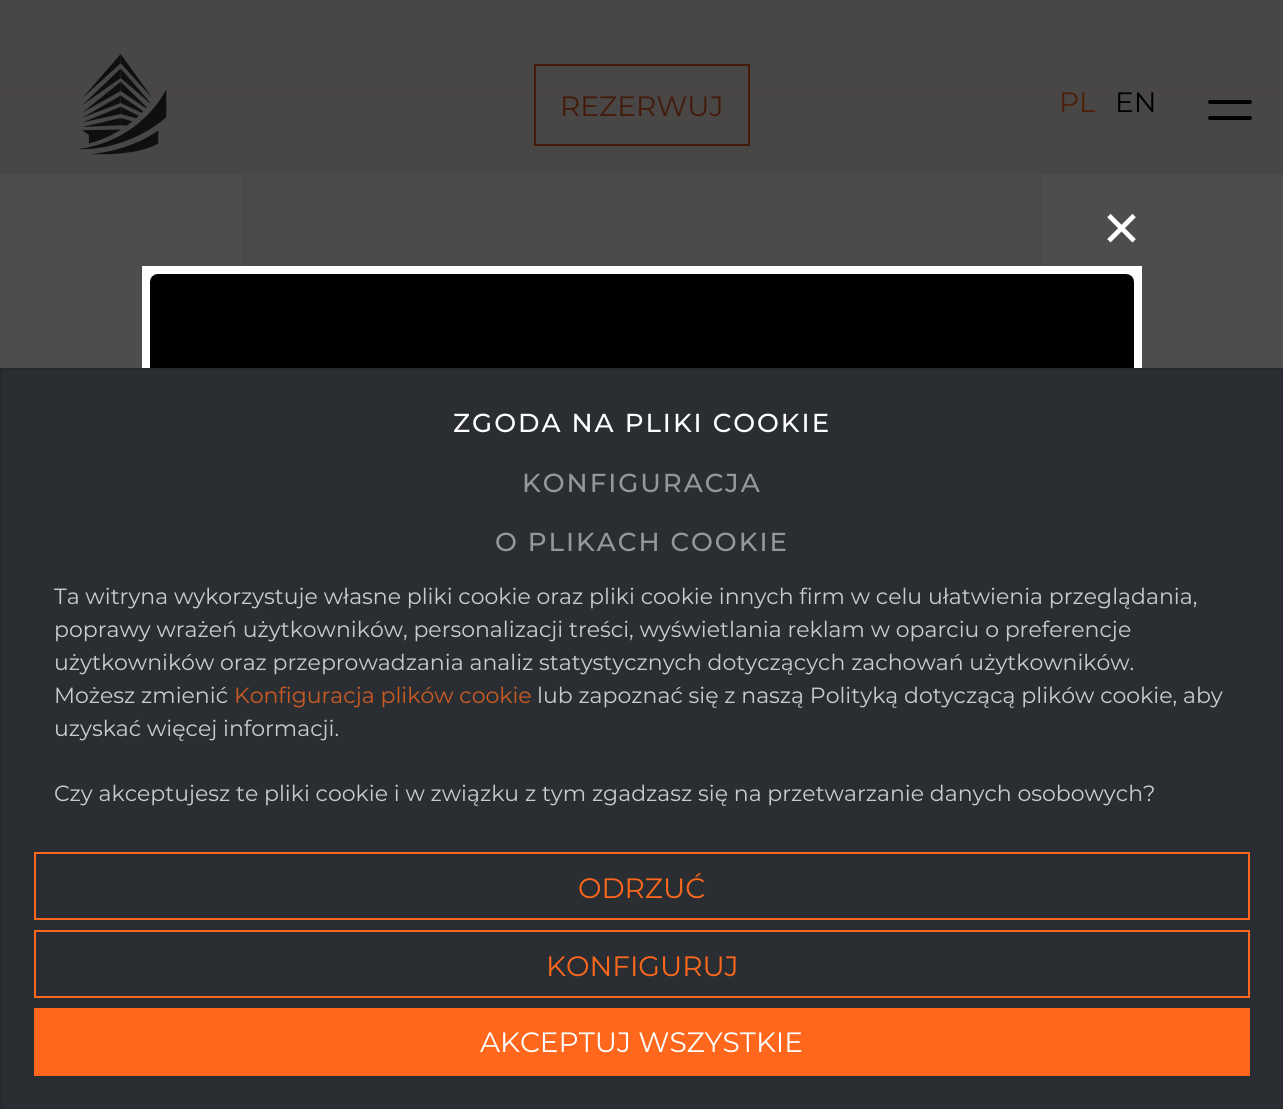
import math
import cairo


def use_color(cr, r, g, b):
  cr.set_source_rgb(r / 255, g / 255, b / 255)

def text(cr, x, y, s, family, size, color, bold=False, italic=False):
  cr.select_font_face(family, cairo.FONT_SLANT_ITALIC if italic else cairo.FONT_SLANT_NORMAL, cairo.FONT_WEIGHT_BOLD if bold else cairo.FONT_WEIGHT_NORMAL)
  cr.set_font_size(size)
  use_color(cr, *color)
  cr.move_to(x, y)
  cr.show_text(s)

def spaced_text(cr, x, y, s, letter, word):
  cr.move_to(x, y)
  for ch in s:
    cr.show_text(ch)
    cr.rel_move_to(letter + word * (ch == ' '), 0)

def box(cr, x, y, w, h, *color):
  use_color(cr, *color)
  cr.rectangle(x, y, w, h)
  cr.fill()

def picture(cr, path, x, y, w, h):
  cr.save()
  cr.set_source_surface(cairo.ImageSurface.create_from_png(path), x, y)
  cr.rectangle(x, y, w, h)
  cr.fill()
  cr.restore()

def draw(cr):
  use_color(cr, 77, 77, 77)
  cr.paint()
  box(cr, 242, 90, 800, 176, 74, 74, 74)
  cr.set_source_rgba(0.286, 0.278, 0.271, 0.8)
  cr.rectangle(0, 90, 1283, 84)
  cr.fill()
  gradient = cairo.LinearGradient(642, 0, 642, 174)
  gradient.add_color_stop_rgba(0.5, 0.286, 0.278, 0.271, 1)
  gradient.add_color_stop_rgba(1, 0.286, 0.278, 0.271, 0.8)
  cr.set_source(gradient)
  cr.rectangle(0, 0, 1283, 90)
  cr.fill()
  picture(cr, "img_01.png", 78, 54, 89, 101)
  picture(cr, "img_02.png", 1208, 100, 44, 20)
  cr.rectangle(535, 65, 214, 80)
  use_color(cr, 67, 26, 10)
  cr.stroke()
  box(cr, 142, 266, 1000, 102, 255, 255, 255)
  picture(cr, "img_03.png", 150, 274, 984, 94)
  use_color(cr, 42, 46, 51)
  cr.rectangle(1, 369, 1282, 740)
  cr.fill_preserve()
  use_color(cr, 37, 40, 45)
  cr.stroke()
  cr.rectangle(35, 853, 1214, 66)
  use_color(cr, 255, 104, 28)
  cr.stroke()
  cr.rectangle(35, 931, 1214, 66)
  cr.stroke()
  box(cr, 34, 1008, 1216, 68, 255, 104, 28)
  text(cr, 560, 116, "REZERWUJ", "Montserrat", 28, (67, 26, 10))
  text(cr, 1059, 112, "PL", "Montserrat", 28, (77, 31, 8))
  text(cr, 1115, 112, "EN", "Montserrat", 28, (0, 0, 0))
  text(cr, 1101, 246, "✕", "DejaVu Sans", 49, (255, 255, 255))
  cr.select_font_face("Montserrat Medium")
  cr.set_font_size(26)
  spaced_text(cr, 453, 432, "ZGODA NA PLIKI COOKIE", 2, 0)
  use_color(cr, 149, 151, 153)
  spaced_text(cr, 522, 492, "KONFIGURACJA", 2, 0)
  spaced_text(cr, 495, 551, "O PLIKACH COOKIE", 2, 0)
  text(cr, 54, 604, "Ta witryna wykorzystuje własne pliki cookie oraz pliki cookie innych firm w celu ułatwienia przeglądania,", "Montserrat", 22, (202, 203, 204))
  text(cr, 54, 637, "poprawy wrażeń użytkowników, personalizacji treści, wyświetlania reklam w oparciu o preferencje", "Montserrat", 22, (202, 203, 204))
  text(cr, 54, 670, "użytkowników oraz przeprowadzania analiz statystycznych dotyczących zachowań użytkowników.", "Montserrat", 22, (202, 203, 204))
  text(cr, 54, 703, "Możesz zmienić", "Montserrat", 22, (202, 203, 204))
  text(cr, 234, 703, "Konfiguracja plików cookie", "Montserrat", 22, (202, 90, 34))
  text(cr, 537, 703, "lub zapoznać się z naszą Polityką dotyczącą plików cookie, aby", "Montserrat", 22, (202, 203, 204))
  text(cr, 54, 736, "uzyskać więcej informacji.", "Montserrat", 22, (202, 203, 204))
  text(cr, 54, 801, "Czy akceptujesz te pliki cookie i w związku z tym zgadzasz się na przetwarzanie danych osobowych?", "Montserrat", 22, (202, 203, 204))
  text(cr, 578, 898, "ODRZUĆ", "Montserrat", 28, (255, 104, 28))
  text(cr, 546, 976, "KONFIGURUJ", "Montserrat", 28, (255, 104, 28))
  text(cr, 480, 1052, "AKCEPTUJ WSZYSTKIE", "Montserrat", 28, (255, 255, 255))


surface = cairo.ImageSurface(cairo.FORMAT_RGB24, 1283, 1109)
cr = cairo.Context(surface)
options = cairo.FontOptions()
options.set_hint_metrics(cairo.HINT_METRICS_OFF)
options.set_hint_style(cairo.HINT_STYLE_NONE)
cr.set_font_options(options)
cr.set_miter_limit(4)
draw(cr)
surface.write_to_png("out.png")
